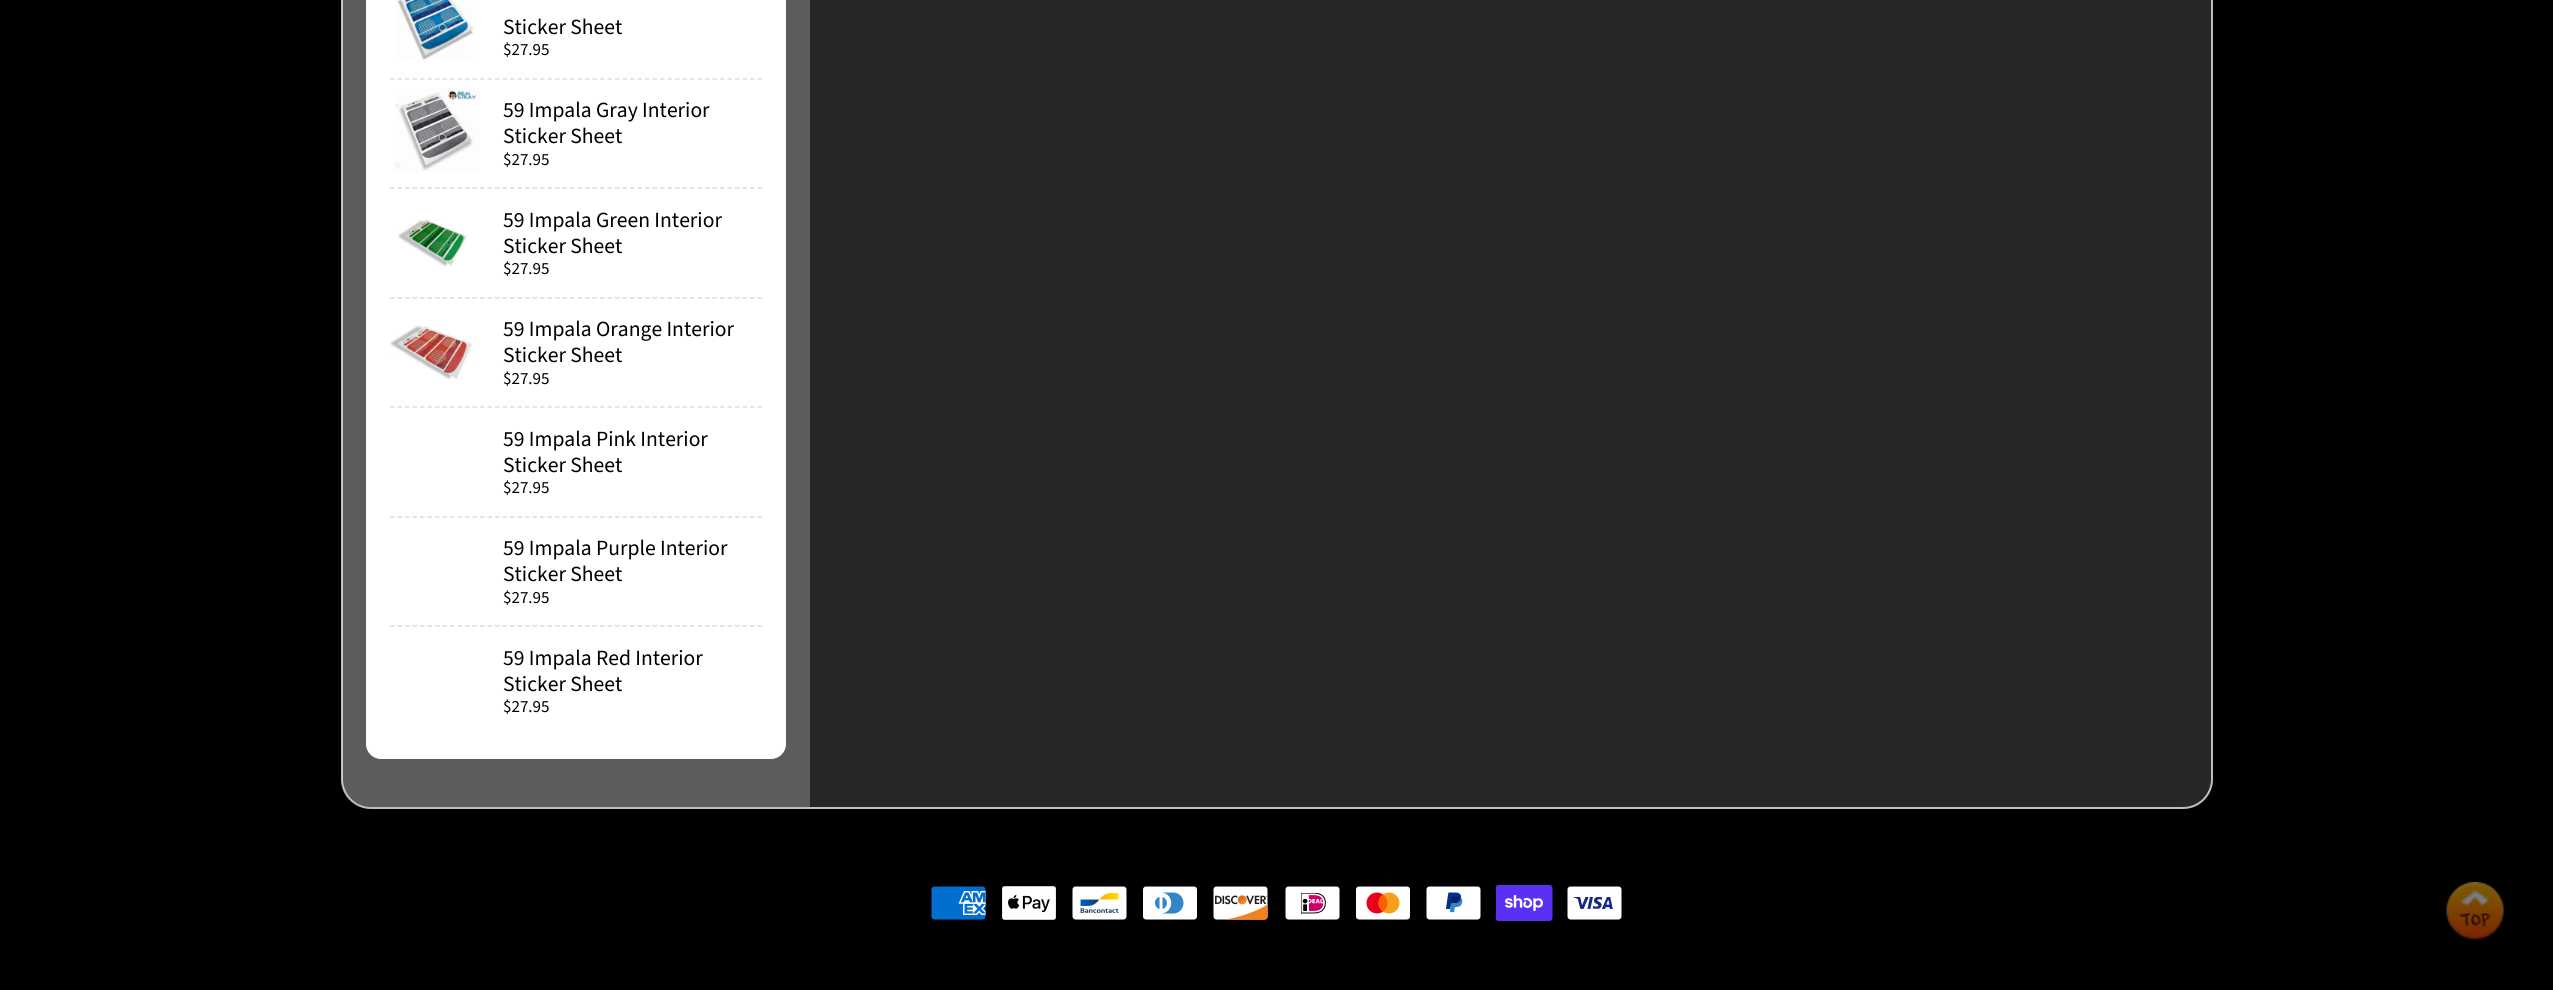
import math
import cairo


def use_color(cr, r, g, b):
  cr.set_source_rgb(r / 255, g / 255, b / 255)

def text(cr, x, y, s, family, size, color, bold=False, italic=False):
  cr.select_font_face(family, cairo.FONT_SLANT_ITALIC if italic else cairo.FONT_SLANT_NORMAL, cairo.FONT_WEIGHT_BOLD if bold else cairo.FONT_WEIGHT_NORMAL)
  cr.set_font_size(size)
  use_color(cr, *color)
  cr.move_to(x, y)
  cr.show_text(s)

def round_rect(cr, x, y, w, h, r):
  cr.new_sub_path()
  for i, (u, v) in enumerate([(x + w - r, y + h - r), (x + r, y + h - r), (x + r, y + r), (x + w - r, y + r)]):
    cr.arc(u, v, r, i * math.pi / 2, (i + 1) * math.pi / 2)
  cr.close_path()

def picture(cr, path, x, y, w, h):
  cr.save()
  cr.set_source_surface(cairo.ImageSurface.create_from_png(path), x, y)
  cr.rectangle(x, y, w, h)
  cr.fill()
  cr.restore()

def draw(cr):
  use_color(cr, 0, 0, 0)
  cr.paint()
  use_color(cr, 38, 38, 38)
  round_rect(cr, 341, -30, 1872, 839, 30)
  cr.fill()
  round_rect(cr, 342, -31, 1870, 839, 29)
  cr.set_source_rgba(1, 1, 1, 0.7)
  cr.stroke()
  cr.set_source_rgba(1, 1, 1, 0.25)
  cr.new_path()
  cr.move_to(371, -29)
  cr.line_to(810, -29)
  cr.line_to(810, 807)
  cr.line_to(371, 807)
  cr.curve_to(355, 807, 342, 794, 342, 778)
  cr.line_to(342, 0)
  cr.curve_to(342, -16, 355, -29, 371, -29)
  cr.close_path()
  cr.fill()
  use_color(cr, 255, 255, 255)
  round_rect(cr, 366, -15, 420, 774, 15)
  cr.fill()
  picture(cr, "img_01.png", 396, 0, 78, 60)
  cr.new_path()
  cr.move_to(390, 79)
  cr.line_to(762, 79)
  use_color(cr, 221, 221, 221)
  cr.set_line_width(1.5)
  cr.set_dash([4.5, 3])
  cr.stroke()
  picture(cr, "img_02.png", 394, 88, 86, 84)
  cr.new_path()
  cr.move_to(390, 188)
  cr.line_to(762, 188)
  cr.stroke()
  picture(cr, "img_03.png", 398, 219, 69, 48)
  cr.new_path()
  cr.move_to(390, 298)
  cr.line_to(762, 298)
  cr.stroke()
  picture(cr, "img_04.png", 390, 325, 83, 55)
  cr.new_path()
  cr.move_to(390, 407)
  cr.line_to(762, 407)
  cr.stroke()
  cr.new_path()
  cr.move_to(390, 517)
  cr.line_to(762, 517)
  cr.stroke()
  cr.new_path()
  cr.move_to(390, 626)
  cr.line_to(762, 626)
  cr.stroke()
  picture(cr, "img_05.png", 931, 886, 55, 34)
  picture(cr, "img_06.png", 1002, 886, 54, 34)
  picture(cr, "img_07.png", 1072, 886, 55, 34)
  picture(cr, "img_08.png", 1143, 886, 54, 34)
  picture(cr, "img_09.png", 1213, 886, 55, 34)
  picture(cr, "img_10.png", 1285, 886, 55, 34)
  picture(cr, "img_11.png", 1356, 886, 54, 34)
  picture(cr, "img_12.png", 1426, 886, 55, 34)
  picture(cr, "img_13.png", 1496, 885, 57, 36)
  picture(cr, "img_14.png", 1567, 886, 55, 34)
  picture(cr, "img_15.png", 2446, 882, 58, 58)
  text(cr, 503, 34, "Sticker Sheet", "Source Sans Pro", 21.6, (0, 0, 0))
  text(cr, 503, 55, "$27.95", "Source Sans Pro", 17, (0, 0, 0))
  text(cr, 503, 117, "59 Impala Gray Interior", "Source Sans Pro", 21.6, (0, 0, 0))
  text(cr, 503, 143, "Sticker Sheet", "Source Sans Pro", 21.6, (0, 0, 0))
  text(cr, 503, 165, "$27.95", "Source Sans Pro", 17, (0, 0, 0))
  text(cr, 503, 227, "59 Impala Green Interior", "Source Sans Pro", 21.6, (0, 0, 0))
  text(cr, 503, 253, "Sticker Sheet", "Source Sans Pro", 21.6, (0, 0, 0))
  text(cr, 503, 274, "$27.95", "Source Sans Pro", 17, (0, 0, 0))
  text(cr, 503, 336, "59 Impala Orange Interior", "Source Sans Pro", 21.6, (0, 0, 0))
  text(cr, 503, 362, "Sticker Sheet", "Source Sans Pro", 21.6, (0, 0, 0))
  text(cr, 503, 384, "$27.95", "Source Sans Pro", 17, (0, 0, 0))
  text(cr, 503, 446, "59 Impala Pink Interior", "Source Sans Pro", 21.6, (0, 0, 0))
  text(cr, 503, 472, "Sticker Sheet", "Source Sans Pro", 21.6, (0, 0, 0))
  text(cr, 503, 493, "$27.95", "Source Sans Pro", 17, (0, 0, 0))
  text(cr, 503, 555, "59 Impala Purple Interior", "Source Sans Pro", 21.6, (0, 0, 0))
  text(cr, 503, 581, "Sticker Sheet", "Source Sans Pro", 21.6, (0, 0, 0))
  text(cr, 503, 603, "$27.95", "Source Sans Pro", 17, (0, 0, 0))
  text(cr, 503, 665, "59 Impala Red Interior", "Source Sans Pro", 21.6, (0, 0, 0))
  text(cr, 503, 691, "Sticker Sheet", "Source Sans Pro", 21.6, (0, 0, 0))
  text(cr, 503, 712, "$27.95", "Source Sans Pro", 17, (0, 0, 0))


surface = cairo.ImageSurface(cairo.FORMAT_RGB24, 2553, 990)
cr = cairo.Context(surface)
options = cairo.FontOptions()
options.set_hint_metrics(cairo.HINT_METRICS_OFF)
options.set_hint_style(cairo.HINT_STYLE_NONE)
cr.set_font_options(options)
cr.set_miter_limit(4)
draw(cr)
surface.write_to_png("out.png")
